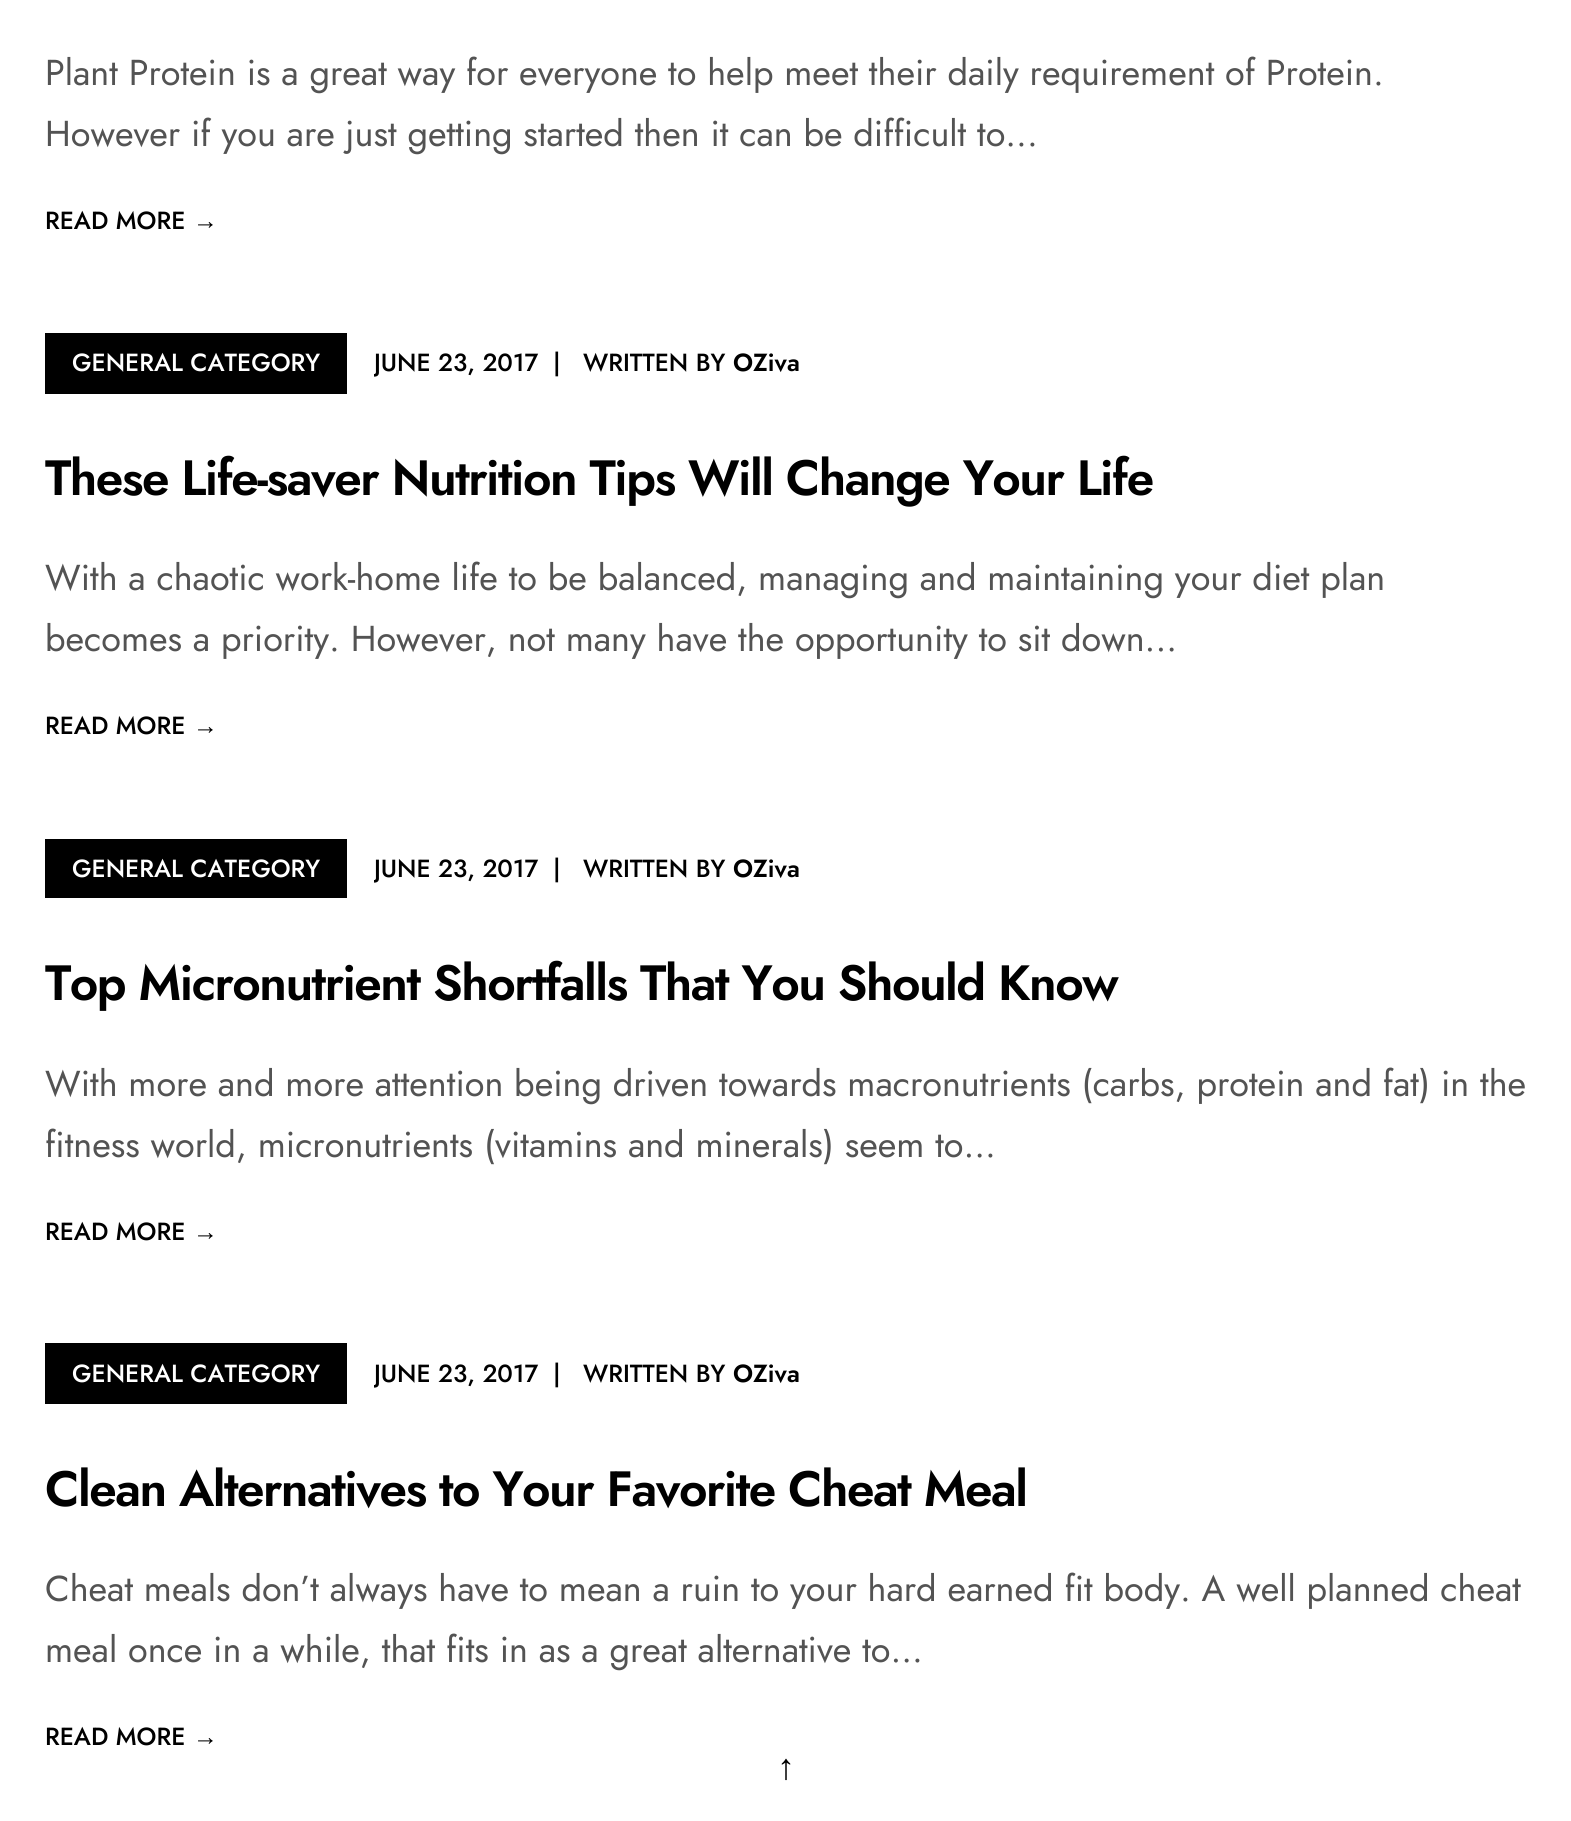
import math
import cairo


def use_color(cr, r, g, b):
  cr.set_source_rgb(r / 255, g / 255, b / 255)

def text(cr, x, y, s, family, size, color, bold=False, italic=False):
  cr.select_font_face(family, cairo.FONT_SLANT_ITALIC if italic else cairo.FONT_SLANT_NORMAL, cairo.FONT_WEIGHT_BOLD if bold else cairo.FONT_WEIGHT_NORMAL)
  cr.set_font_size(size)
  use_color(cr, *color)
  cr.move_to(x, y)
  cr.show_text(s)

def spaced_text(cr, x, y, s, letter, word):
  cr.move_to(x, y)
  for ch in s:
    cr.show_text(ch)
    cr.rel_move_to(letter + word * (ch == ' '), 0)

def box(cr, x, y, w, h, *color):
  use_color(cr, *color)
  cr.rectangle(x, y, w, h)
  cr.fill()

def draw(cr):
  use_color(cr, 255, 255, 255)
  cr.paint()
  box(cr, 45, 333, 302, 61, 0, 0, 0)
  box(cr, 45, 839, 302, 59, 0, 0, 0)
  box(cr, 45, 1343, 302, 61, 0, 0, 0)
  text(cr, 45, 85, "Plant Protein is a great way for everyone to help meet their daily requirement of Protein.", "Jost", 36, (83, 83, 83))
  text(cr, 45, 146, "However if you are just getting started then it can be difficult to...", "Jost", 36, (83, 83, 83))
  text(cr, 45, 229, "READ MORE", "Jost Medium", 24.75, (0, 0, 0))
  text(cr, 193, 229, "→", "Liberation Serif", 24.75, (0, 0, 0))
  cr.save()
  cr.rectangle(374, 342, 438, 43)
  cr.clip()
  text(cr, 374, 371, "JUNE 23, 2017", "Jost Medium", 24.75, (0, 0, 0))
  cr.restore()
  text(cr, 553, 371, "|", "Jost Medium", 24.75, (0, 0, 0))
  text(cr, 583, 371, "WRITTEN BY", "Jost Medium", 24.75, (0, 0, 0))
  text(cr, 733, 371, "OZiva", "Jost SemiBold", 24.75, (0, 0, 0))
  cr.set_font_size(49.5)
  spaced_text(cr, 45, 495, "These Life-saver Nutrition Tips Will Change Your Life", -1.5, 0)
  text(cr, 45, 590, "With a chaotic work-home life to be balanced, managing and maintaining your diet plan", "Jost", 36, (83, 83, 83))
  text(cr, 45, 651, "becomes a priority. However, not many have the opportunity to sit down...", "Jost", 36, (83, 83, 83))
  text(cr, 45, 734, "READ MORE", "Jost Medium", 24.75, (0, 0, 0))
  text(cr, 193, 734, "→", "Liberation Serif", 24.75, (0, 0, 0))
  text(cr, 72, 371, "GENERAL CATEGORY", "Jost Medium", 24.75, (255, 255, 255))
  cr.save()
  cr.rectangle(374, 848, 438, 41)
  cr.clip()
  text(cr, 374, 877, "JUNE 23, 2017", "Jost Medium", 24.75, (0, 0, 0))
  cr.restore()
  text(cr, 553, 877, "|", "Jost Medium", 24.75, (0, 0, 0))
  text(cr, 583, 877, "WRITTEN BY", "Jost Medium", 24.75, (0, 0, 0))
  text(cr, 733, 877, "OZiva", "Jost SemiBold", 24.75, (0, 0, 0))
  cr.set_font_size(49.5)
  spaced_text(cr, 45, 1000, "Top Micronutrient Shortfalls That You Should Know", -1.5, 0)
  text(cr, 45, 1096, "With more and more attention being driven towards macronutrients (carbs, protein and fat) in the", "Jost", 36, (83, 83, 83))
  text(cr, 45, 1157, "fitness world, micronutrients (vitamins and minerals) seem to...", "Jost", 36, (83, 83, 83))
  text(cr, 45, 1240, "READ MORE", "Jost Medium", 24.75, (0, 0, 0))
  text(cr, 193, 1240, "→", "Liberation Serif", 24.75, (0, 0, 0))
  text(cr, 72, 877, "GENERAL CATEGORY", "Jost Medium", 24.75, (255, 255, 255))
  cr.save()
  cr.rectangle(374, 1352, 438, 43)
  cr.clip()
  text(cr, 374, 1382, "JUNE 23, 2017", "Jost Medium", 24.75, (0, 0, 0))
  cr.restore()
  text(cr, 553, 1382, "|", "Jost Medium", 24.75, (0, 0, 0))
  text(cr, 583, 1382, "WRITTEN BY", "Jost Medium", 24.75, (0, 0, 0))
  text(cr, 733, 1382, "OZiva", "Jost SemiBold", 24.75, (0, 0, 0))
  cr.set_font_size(49.5)
  spaced_text(cr, 45, 1506, "Clean Alternatives to Your Favorite Cheat Meal", -1.5, 0)
  text(cr, 45, 1601, "Cheat meals don’t always have to mean a ruin to your hard earned fit body. A well planned cheat", "Jost", 36, (83, 83, 83))
  text(cr, 45, 1662, "meal once in a while, that fits in as a great alternative to...", "Jost", 36, (83, 83, 83))
  text(cr, 45, 1745, "READ MORE", "Jost Medium", 24.75, (0, 0, 0))
  text(cr, 193, 1745, "→", "Liberation Serif", 24.75, (0, 0, 0))
  text(cr, 72, 1382, "GENERAL CATEGORY", "Jost Medium", 24.75, (255, 255, 255))
  text(cr, 777, 1779, "↑", "Liberation Serif", 36, (0, 0, 0))


surface = cairo.ImageSurface(cairo.FORMAT_RGB24, 1571, 1821)
cr = cairo.Context(surface)
options = cairo.FontOptions()
options.set_hint_metrics(cairo.HINT_METRICS_OFF)
options.set_hint_style(cairo.HINT_STYLE_NONE)
cr.set_font_options(options)
cr.set_miter_limit(4)
draw(cr)
surface.write_to_png("out.png")
